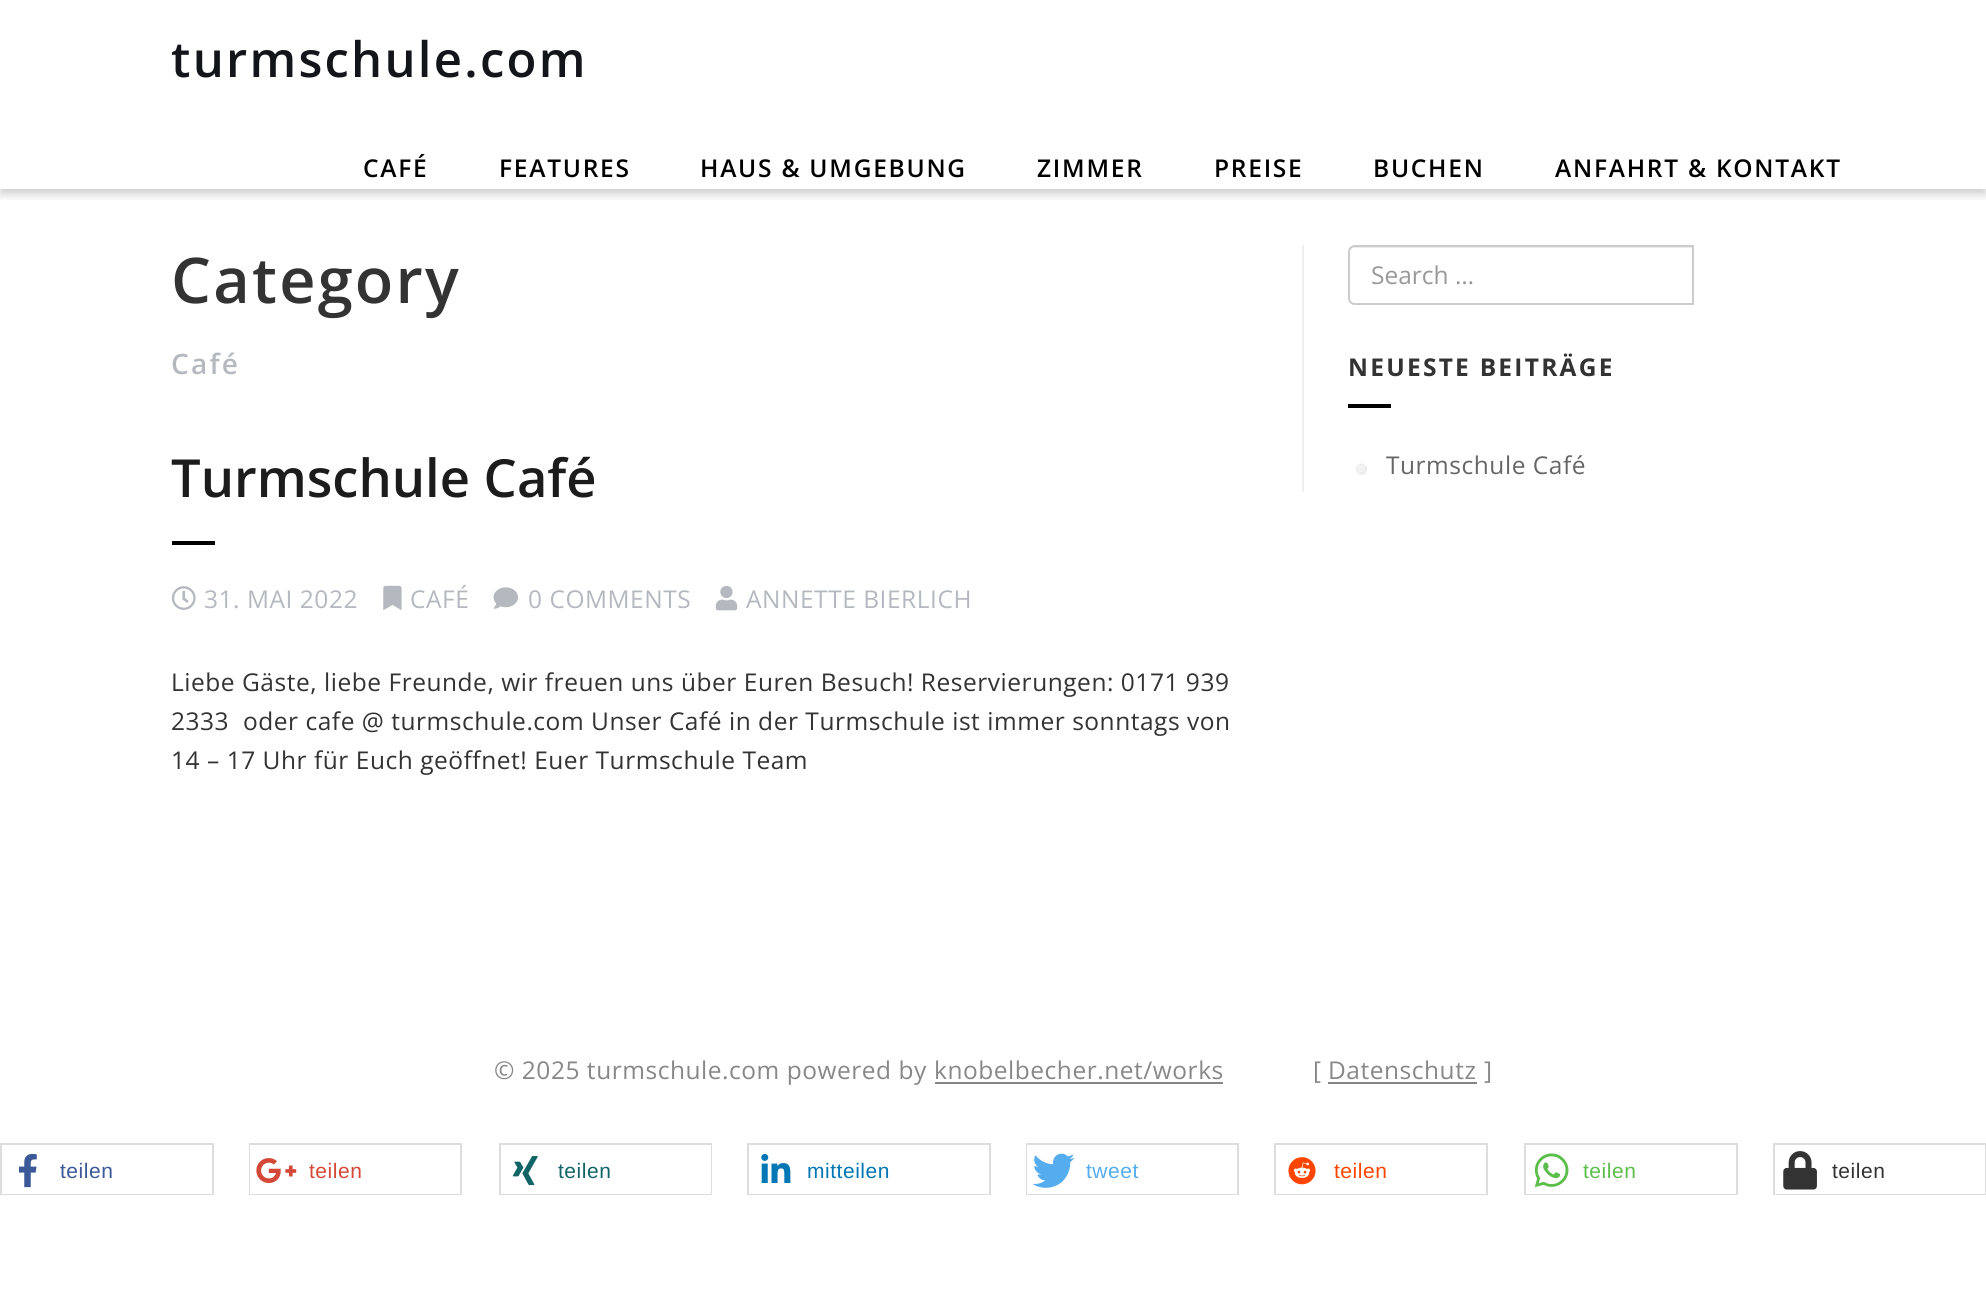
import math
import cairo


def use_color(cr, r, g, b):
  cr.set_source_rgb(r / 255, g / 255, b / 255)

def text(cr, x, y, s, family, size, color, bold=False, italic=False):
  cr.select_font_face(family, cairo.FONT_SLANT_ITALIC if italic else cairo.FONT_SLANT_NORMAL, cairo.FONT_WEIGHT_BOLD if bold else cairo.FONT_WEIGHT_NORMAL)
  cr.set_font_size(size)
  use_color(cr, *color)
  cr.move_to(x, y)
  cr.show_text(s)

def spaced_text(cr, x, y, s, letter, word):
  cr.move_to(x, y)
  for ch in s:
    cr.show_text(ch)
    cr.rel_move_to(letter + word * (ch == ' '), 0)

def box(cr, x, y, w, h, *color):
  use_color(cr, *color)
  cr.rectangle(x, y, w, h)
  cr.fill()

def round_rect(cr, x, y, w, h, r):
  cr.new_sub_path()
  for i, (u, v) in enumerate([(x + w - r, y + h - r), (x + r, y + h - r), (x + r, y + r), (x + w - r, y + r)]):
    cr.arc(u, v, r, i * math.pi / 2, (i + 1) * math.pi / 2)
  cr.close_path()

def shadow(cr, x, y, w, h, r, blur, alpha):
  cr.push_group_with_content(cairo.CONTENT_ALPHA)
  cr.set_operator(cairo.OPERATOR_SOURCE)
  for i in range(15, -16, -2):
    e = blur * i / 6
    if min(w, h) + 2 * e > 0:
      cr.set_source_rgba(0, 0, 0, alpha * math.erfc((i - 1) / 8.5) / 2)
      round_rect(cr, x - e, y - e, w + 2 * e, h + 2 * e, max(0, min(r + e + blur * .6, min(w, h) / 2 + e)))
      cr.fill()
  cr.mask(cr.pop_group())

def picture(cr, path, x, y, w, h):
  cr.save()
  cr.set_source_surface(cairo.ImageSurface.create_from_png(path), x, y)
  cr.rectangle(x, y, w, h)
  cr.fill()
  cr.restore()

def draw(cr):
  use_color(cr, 255, 255, 255)
  cr.paint()
  cr.save()
  cr.rectangle(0, 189, 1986, 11)
  cr.clip()
  use_color(cr, 0, 0, 0)
  shadow(cr, 0, 5, 1986, 189, 0, 5, 0.2)
  cr.restore()
  box(cr, 172, 541, 43, 4, 0, 0, 0)
  picture(cr, "img_01.png", 171, 586, 25, 24)
  picture(cr, "img_02.png", 383, 585, 19, 26)
  picture(cr, "img_03.png", 493, 587, 25, 22)
  picture(cr, "img_04.png", 715, 585, 23, 26)
  box(cr, 1302, 245, 2, 247, 239, 239, 239)
  use_color(cr, 236, 236, 236)
  cr.new_path()
  cr.move_to(1354, 248)
  cr.line_to(1692, 248)
  cr.line_to(1692, 247)
  cr.line_to(1354, 247)
  cr.curve_to(1350, 247, 1349, 251, 1349, 254)
  cr.curve_to(1349, 251, 1352, 248, 1354, 248)
  cr.close_path()
  cr.fill()
  cr.new_path()
  cr.move_to(1355, 246)
  cr.line_to(1693, 246)
  cr.line_to(1693, 304)
  cr.line_to(1355, 304)
  cr.curve_to(1351.5, 304, 1349, 301.5, 1349, 298)
  cr.line_to(1349, 252)
  cr.curve_to(1349, 248.5, 1351.5, 246, 1355, 246)
  cr.close_path()
  use_color(cr, 204, 204, 204)
  cr.stroke()
  box(cr, 1348, 404, 43, 4, 0, 0, 0)
  picture(cr, "img_05.png", 1356, 463, 11, 12)
  box(cr, 935, 1082, 288, 2, 133, 133, 133)
  box(cr, 1328, 1082, 149, 2, 133, 133, 133)
  cr.rectangle(1, 1144, 212, 50)
  use_color(cr, 221, 221, 221)
  cr.stroke()
  box(cr, 2, 1193, 210, 1, 255, 255, 255)
  picture(cr, "img_06.png", 19, 1153, 18, 35)
  cr.rectangle(250, 1144, 211, 50)
  use_color(cr, 221, 221, 221)
  cr.stroke()
  box(cr, 250, 1145, 210, 49, 255, 255, 255)
  picture(cr, "img_07.png", 256, 1158, 41, 25)
  cr.rectangle(500, 1144, 211, 50)
  use_color(cr, 221, 221, 221)
  cr.stroke()
  box(cr, 501, 1145, 210, 49, 255, 255, 255)
  picture(cr, "img_08.png", 512, 1156, 26, 30)
  cr.rectangle(748, 1144, 242, 50)
  use_color(cr, 221, 221, 221)
  cr.stroke()
  box(cr, 749, 1193, 240, 1, 255, 255, 255)
  picture(cr, "img_09.png", 761, 1153, 30, 30)
  cr.rectangle(1027, 1144, 211, 50)
  use_color(cr, 221, 221, 221)
  cr.stroke()
  box(cr, 1027, 1145, 210, 49, 255, 255, 255)
  picture(cr, "img_10.png", 1032, 1153, 43, 35)
  cr.rectangle(1275, 1144, 212, 50)
  use_color(cr, 221, 221, 221)
  cr.stroke()
  box(cr, 1276, 1193, 210, 1, 255, 255, 255)
  picture(cr, "img_11.png", 1288, 1157, 28, 28)
  cr.rectangle(1525, 1144, 212, 50)
  use_color(cr, 221, 221, 221)
  cr.stroke()
  box(cr, 1526, 1193, 210, 1, 255, 255, 255)
  picture(cr, "img_12.png", 1534, 1153, 35, 35)
  cr.rectangle(1774, 1144, 211, 50)
  use_color(cr, 221, 221, 221)
  cr.stroke()
  box(cr, 1775, 1145, 210, 49, 255, 255, 255)
  picture(cr, "img_13.png", 1783, 1151, 34, 39)
  cr.select_font_face("Open Sans SemiBold")
  cr.set_font_size(49)
  use_color(cr, 19, 21, 26)
  spaced_text(cr, 171, 77, "turmschule.com", 2.25, 0)
  cr.set_font_size(24.5)
  use_color(cr, 0, 0, 0)
  spaced_text(cr, 363, 177, "CAFÉ", 1.75, 0)
  spaced_text(cr, 499, 177, "FEATURES", 1.75, 0)
  spaced_text(cr, 700, 177, "HAUS & UMGEBUNG", 1.75, 0)
  spaced_text(cr, 1037, 177, "ZIMMER", 1.75, 0)
  spaced_text(cr, 1214, 177, "PREISE", 1.75, 0)
  spaced_text(cr, 1373, 177, "BUCHEN", 1.75, 0)
  spaced_text(cr, 1555, 177, "ANFAHRT & KONTAKT", 1.75, 0)
  cr.set_font_size(63)
  use_color(cr, 51, 51, 51)
  spaced_text(cr, 171, 303, "Category", 2.25, 0)
  cr.set_font_size(28)
  use_color(cr, 181, 184, 191)
  spaced_text(cr, 171, 374, "Café", 2.25, 0)
  text(cr, 171, 497, "Turmschule Café", "Open Sans SemiBold", 52.5, (28, 28, 28))
  cr.select_font_face("Open Sans")
  cr.set_font_size(24.5)
  use_color(cr, 181, 184, 191)
  spaced_text(cr, 204, 608, "31. MAI 2022", 0.53, 0)
  spaced_text(cr, 410, 608, "CAFÉ", 0.53, 0)
  spaced_text(cr, 528, 608, "0 COMMENTS", 0.53, 0)
  spaced_text(cr, 746, 608, "ANNETTE BIERLICH", 0.53, 0)
  use_color(cr, 51, 51, 51)
  spaced_text(cr, 171, 691, "Liebe Gäste, liebe Freunde, wir freuen uns über Euren Besuch! Reservierungen: 0171 939", 0.53, 0)
  spaced_text(cr, 171, 730, "2333  oder cafe @ turmschule.com Unser Café in der Turmschule ist immer sonntags von", 0.53, 0)
  spaced_text(cr, 171, 769, "14 – 17 Uhr für Euch geöffnet! Euer Turmschule Team", 0.53, 0)
  text(cr, 1371, 284, "Search …", "Open Sans", 24.5, (153, 153, 153))
  cr.select_font_face("Open Sans", cairo.FONT_SLANT_NORMAL, cairo.FONT_WEIGHT_BOLD)
  use_color(cr, 51, 51, 51)
  spaced_text(cr, 1348, 376, "NEUESTE BEITRÄGE", 2.25, 0)
  cr.select_font_face("Open Sans")
  use_color(cr, 102, 102, 102)
  spaced_text(cr, 1386, 474, "Turmschule Café", 0.53, 0)
  use_color(cr, 136, 136, 136)
  spaced_text(cr, 494, 1079, "© 2025 turmschule.com powered by", 0.53, 0)
  spaced_text(cr, 934, 1079, "knobelbecher.net/works", 0.53, 0)
  spaced_text(cr, 1313, 1079, "[", 0.53, 0)
  spaced_text(cr, 1328, 1079, "Datenschutz", 0.53, 0)
  spaced_text(cr, 1484, 1079, "]", 0.53, 0)
  cr.select_font_face("Liberation Sans")
  cr.set_font_size(21)
  use_color(cr, 59, 89, 152)
  spaced_text(cr, 60, 1178, "teilen", 0.53, 0)
  use_color(cr, 211, 72, 54)
  spaced_text(cr, 309, 1178, "teilen", 0.53, 0)
  use_color(cr, 18, 101, 103)
  spaced_text(cr, 558, 1178, "teilen", 0.53, 0)
  use_color(cr, 0, 119, 181)
  spaced_text(cr, 807, 1178, "mitteilen", 0.53, 0)
  use_color(cr, 85, 172, 238)
  spaced_text(cr, 1086, 1178, "tweet", 0.53, 0)
  use_color(cr, 255, 69, 0)
  spaced_text(cr, 1334, 1178, "teilen", 0.53, 0)
  use_color(cr, 92, 190, 74)
  spaced_text(cr, 1583, 1178, "teilen", 0.53, 0)
  use_color(cr, 51, 51, 51)
  spaced_text(cr, 1832, 1178, "teilen", 0.53, 0)


surface = cairo.ImageSurface(cairo.FORMAT_RGB24, 1986, 1314)
cr = cairo.Context(surface)
options = cairo.FontOptions()
options.set_hint_metrics(cairo.HINT_METRICS_OFF)
options.set_hint_style(cairo.HINT_STYLE_NONE)
cr.set_font_options(options)
cr.set_miter_limit(4)
draw(cr)
surface.write_to_png("out.png")
